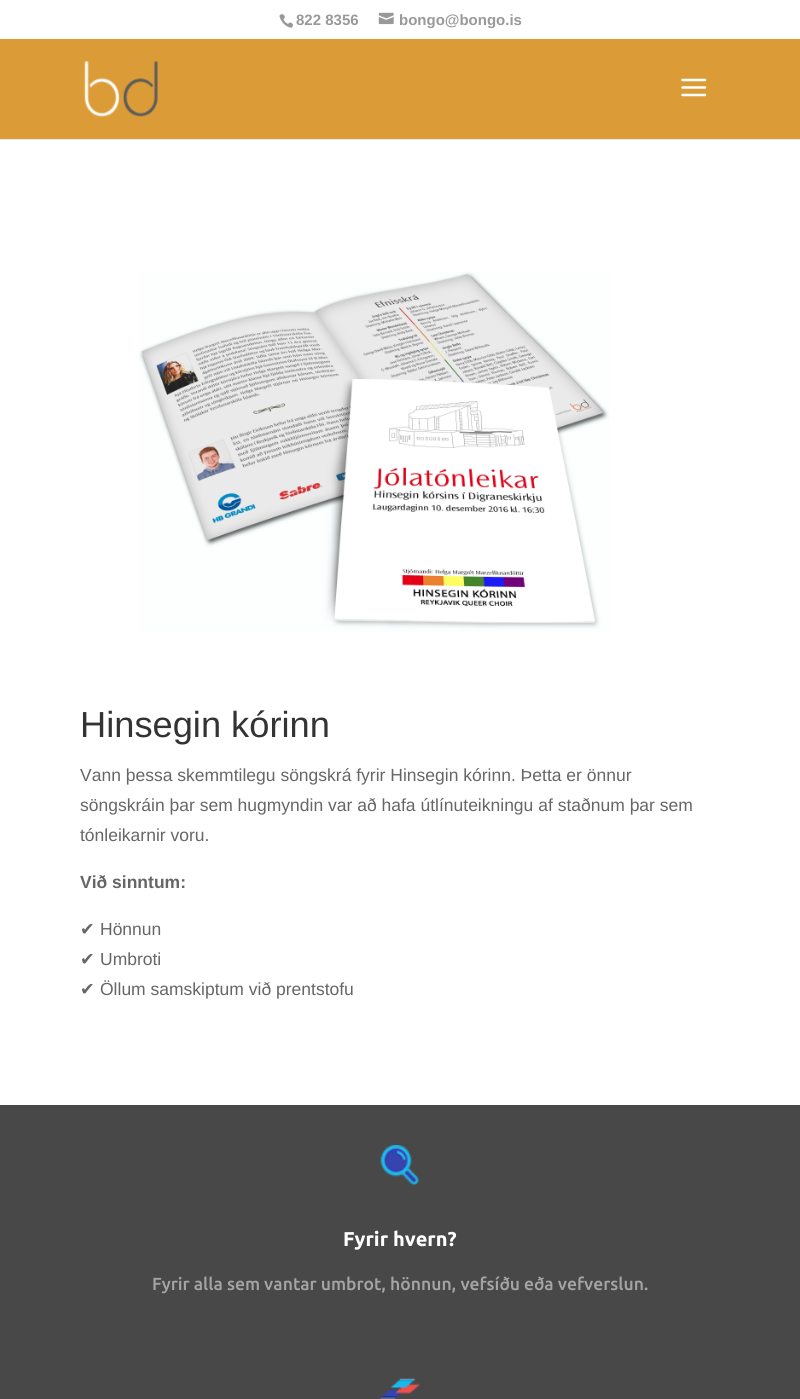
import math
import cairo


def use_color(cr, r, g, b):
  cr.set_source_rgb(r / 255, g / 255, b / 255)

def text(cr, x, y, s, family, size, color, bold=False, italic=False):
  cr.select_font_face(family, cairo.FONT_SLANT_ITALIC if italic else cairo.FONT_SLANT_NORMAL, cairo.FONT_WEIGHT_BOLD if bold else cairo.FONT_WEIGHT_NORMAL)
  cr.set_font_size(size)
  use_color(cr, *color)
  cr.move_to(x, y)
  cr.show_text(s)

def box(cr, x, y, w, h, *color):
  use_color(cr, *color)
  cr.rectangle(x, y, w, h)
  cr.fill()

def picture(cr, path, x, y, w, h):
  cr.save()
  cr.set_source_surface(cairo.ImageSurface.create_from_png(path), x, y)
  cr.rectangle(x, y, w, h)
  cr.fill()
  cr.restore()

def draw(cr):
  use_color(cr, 255, 255, 255)
  cr.paint()
  picture(cr, "img_01.png", 279, 14, 15, 14)
  picture(cr, "img_02.png", 378, 12, 16, 13)
  box(cr, 0, 139, 800, 1, 230, 230, 230)
  box(cr, 0, 39, 800, 100, 219, 156, 56)
  picture(cr, "img_03.png", 84, 61, 74, 56)
  picture(cr, "img_04.png", 681, 78, 26, 19)
  picture(cr, "img_05.png", 139, 271, 471, 361)
  box(cr, 0, 1105, 800, 294, 72, 72, 72)
  picture(cr, "img_06.png", 380, 1145, 39, 40)
  picture(cr, "img_07.png", 380, 1378, 40, 21)
  text(cr, 296, 25, "822 8356", "Liberation Sans", 15, (153, 153, 153), bold=True)
  text(cr, 399, 25, "bongo@bongo.is", "Liberation Sans", 15, (153, 153, 153), bold=True)
  text(cr, 80, 737, "Hinsegin kórinn", "Liberation Sans", 36.25, (51, 51, 51))
  text(cr, 80, 781, "Vann þessa skemmtilegu söngskrá fyrir Hinsegin kórinn. Þetta er önnur", "Liberation Sans", 17.5, (102, 102, 102))
  text(cr, 80, 811, "söngskráin þar sem hugmyndin var að hafa útlínuteikningu af staðnum þar sem", "Liberation Sans", 17.5, (102, 102, 102))
  text(cr, 80, 841, "tónleikarnir voru.", "Liberation Sans", 17.5, (102, 102, 102))
  text(cr, 80, 888, "Við sinntum:", "Liberation Sans", 17.5, (102, 102, 102), bold=True)
  text(cr, 80, 935, "✔", "DejaVu Sans", 17.5, (102, 102, 102))
  text(cr, 100, 935, "Hönnun", "Liberation Sans", 17.5, (102, 102, 102))
  text(cr, 80, 965, "✔", "DejaVu Sans", 17.5, (102, 102, 102))
  text(cr, 100, 965, "Umbroti", "Liberation Sans", 17.5, (102, 102, 102))
  text(cr, 80, 995, "✔", "DejaVu Sans", 17.5, (102, 102, 102))
  text(cr, 100, 995, "Öllum samskiptum við prentstofu", "Liberation Sans", 17.5, (102, 102, 102))
  text(cr, 343, 1246, "Fyrir hvern?", "Ubuntu", 20, (255, 255, 255), bold=True)
  text(cr, 152, 1290, "Fyrir alla sem vantar umbrot, hönnun, vefsíðu eða vefverslun.", "Ubuntu Medium", 17.5, (164, 164, 164))


surface = cairo.ImageSurface(cairo.FORMAT_RGB24, 800, 1399)
cr = cairo.Context(surface)
options = cairo.FontOptions()
options.set_hint_metrics(cairo.HINT_METRICS_OFF)
options.set_hint_style(cairo.HINT_STYLE_NONE)
cr.set_font_options(options)
cr.set_miter_limit(4)
draw(cr)
surface.write_to_png("out.png")
